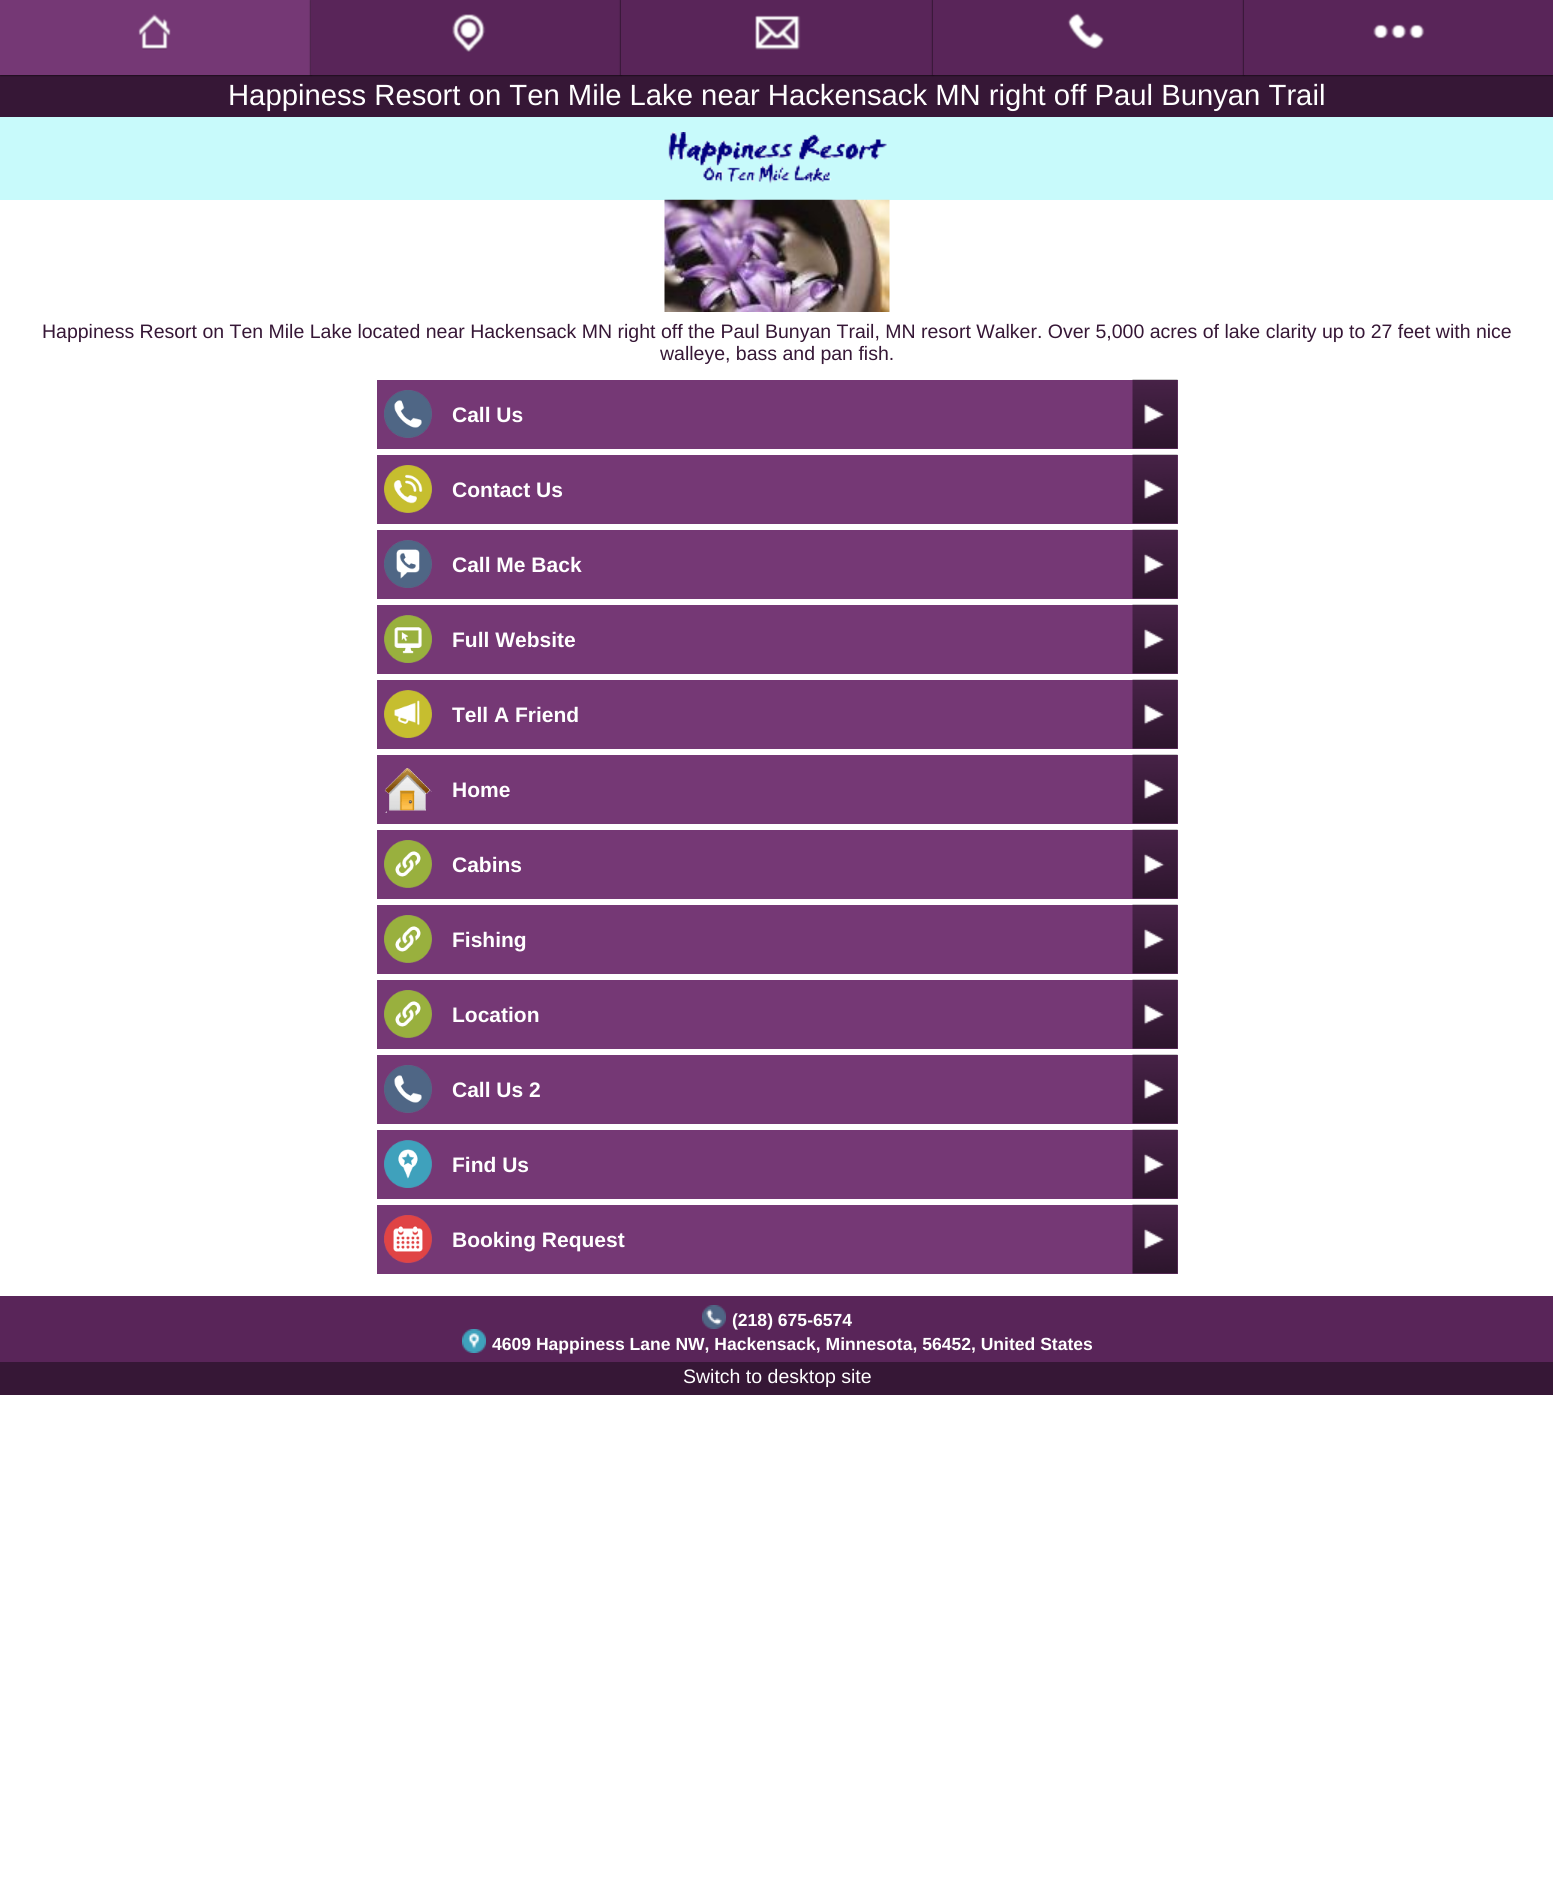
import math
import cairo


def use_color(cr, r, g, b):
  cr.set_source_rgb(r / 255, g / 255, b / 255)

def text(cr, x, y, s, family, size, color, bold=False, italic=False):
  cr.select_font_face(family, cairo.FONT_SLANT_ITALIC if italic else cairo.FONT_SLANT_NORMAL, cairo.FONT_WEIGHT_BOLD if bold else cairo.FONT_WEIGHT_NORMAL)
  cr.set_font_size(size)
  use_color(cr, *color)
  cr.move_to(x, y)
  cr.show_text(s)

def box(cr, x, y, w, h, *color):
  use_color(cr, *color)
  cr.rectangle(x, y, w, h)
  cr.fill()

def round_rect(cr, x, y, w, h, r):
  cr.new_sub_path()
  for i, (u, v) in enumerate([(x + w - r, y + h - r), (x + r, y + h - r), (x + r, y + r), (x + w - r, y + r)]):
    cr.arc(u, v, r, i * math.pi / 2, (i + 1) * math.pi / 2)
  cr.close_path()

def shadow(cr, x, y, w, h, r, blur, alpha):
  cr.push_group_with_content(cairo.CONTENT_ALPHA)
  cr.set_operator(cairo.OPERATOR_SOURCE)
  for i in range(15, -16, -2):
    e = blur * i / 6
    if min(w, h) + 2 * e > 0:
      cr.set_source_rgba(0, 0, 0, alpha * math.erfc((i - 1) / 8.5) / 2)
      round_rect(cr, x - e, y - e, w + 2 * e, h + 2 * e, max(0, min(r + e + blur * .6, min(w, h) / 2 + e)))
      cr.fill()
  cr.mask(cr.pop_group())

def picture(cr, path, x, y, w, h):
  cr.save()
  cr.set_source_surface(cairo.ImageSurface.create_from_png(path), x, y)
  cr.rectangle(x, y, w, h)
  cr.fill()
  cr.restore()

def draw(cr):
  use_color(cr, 255, 255, 255)
  cr.paint()
  box(cr, 0, 75, 1553, 42, 54, 23, 54)
  use_color(cr, 0, 0, 0)
  shadow(cr, 0, 0, 311, 75, 0, 1, 1)
  box(cr, 0, 0, 311, 75, 117, 56, 117)
  picture(cr, "img_01.png", 138, 14, 33, 36)
  use_color(cr, 0, 0, 0)
  shadow(cr, 311, 0, 310, 75, 0, 1, 1)
  box(cr, 311, 0, 310, 75, 89, 37, 89)
  picture(cr, "img_02.png", 452, 14, 34, 38)
  use_color(cr, 0, 0, 0)
  shadow(cr, 621, 0, 312, 75, 0, 1, 1)
  box(cr, 621, 0, 312, 75, 89, 37, 89)
  picture(cr, "img_03.png", 755, 15, 46, 35)
  use_color(cr, 0, 0, 0)
  shadow(cr, 933, 0, 311, 75, 0, 1, 1)
  box(cr, 933, 0, 311, 75, 89, 37, 89)
  picture(cr, "img_04.png", 1067, 13, 37, 37)
  use_color(cr, 0, 0, 0)
  shadow(cr, 1244, 0, 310, 75, 0, 1, 1)
  box(cr, 1244, 0, 309, 75, 89, 37, 89)
  picture(cr, "img_05.png", 1373, 24, 52, 16)
  box(cr, 0, 117, 1553, 83, 200, 250, 251)
  picture(cr, "img_06.png", 668, 132, 219, 52)
  picture(cr, "img_07.png", 664, 199, 226, 113)
  box(cr, 377, 380, 801, 69, 117, 56, 117)
  picture(cr, "img_08.png", 1132, 379, 46, 70)
  picture(cr, "img_09.png", 384, 390, 48, 48)
  box(cr, 377, 455, 801, 69, 117, 56, 117)
  picture(cr, "img_08.png", 1132, 454, 46, 70)
  picture(cr, "img_10.png", 384, 465, 48, 48)
  box(cr, 377, 530, 801, 69, 117, 56, 117)
  picture(cr, "img_08.png", 1132, 529, 46, 70)
  picture(cr, "img_11.png", 384, 540, 48, 48)
  box(cr, 377, 605, 801, 69, 117, 56, 117)
  picture(cr, "img_08.png", 1132, 604, 46, 70)
  picture(cr, "img_12.png", 384, 615, 48, 48)
  box(cr, 377, 680, 801, 69, 117, 56, 117)
  picture(cr, "img_08.png", 1132, 679, 46, 70)
  picture(cr, "img_13.png", 384, 690, 48, 48)
  box(cr, 377, 755, 801, 69, 117, 56, 117)
  picture(cr, "img_08.png", 1132, 754, 46, 70)
  picture(cr, "img_14.png", 384, 768, 48, 45)
  box(cr, 377, 830, 801, 69, 117, 56, 117)
  picture(cr, "img_08.png", 1132, 829, 46, 70)
  picture(cr, "img_15.png", 384, 840, 48, 48)
  box(cr, 377, 905, 801, 69, 117, 56, 117)
  picture(cr, "img_08.png", 1132, 904, 46, 70)
  picture(cr, "img_15.png", 384, 915, 48, 48)
  box(cr, 377, 980, 801, 69, 117, 56, 117)
  picture(cr, "img_08.png", 1132, 979, 46, 70)
  picture(cr, "img_15.png", 384, 990, 48, 48)
  box(cr, 377, 1055, 801, 69, 117, 56, 117)
  picture(cr, "img_08.png", 1132, 1054, 46, 70)
  picture(cr, "img_09.png", 384, 1065, 48, 48)
  box(cr, 377, 1130, 801, 69, 117, 56, 117)
  picture(cr, "img_08.png", 1132, 1129, 46, 70)
  picture(cr, "img_16.png", 384, 1140, 48, 48)
  box(cr, 377, 1205, 801, 69, 117, 56, 117)
  picture(cr, "img_08.png", 1132, 1204, 46, 70)
  picture(cr, "img_17.png", 384, 1215, 48, 48)
  box(cr, 0, 1296, 1553, 66, 89, 37, 89)
  picture(cr, "img_18.png", 702, 1305, 24, 24)
  picture(cr, "img_19.png", 462, 1329, 24, 24)
  box(cr, 0, 1362, 1553, 33, 54, 23, 54)
  text(cr, 228, 105, "Happiness Resort on Ten Mile Lake near Hackensack MN right off Paul Bunyan Trail", "Liberation Sans", 29.25, (255, 255, 255))
  text(cr, 42, 338, "Happiness Resort on Ten Mile Lake located near Hackensack MN right off the Paul Bunyan Trail, MN resort Walker. Over 5,000 acres of lake clarity up to 27 feet with nice", "Liberation Sans", 19.5, (54, 23, 54))
  text(cr, 660, 360, "walleye, bass and pan fish.", "Liberation Sans", 19.5, (54, 23, 54))
  text(cr, 452, 422, "Call Us", "Liberation Sans", 21, (255, 255, 255), bold=True)
  text(cr, 452, 497, "Contact Us", "Liberation Sans", 21, (255, 255, 255), bold=True)
  text(cr, 452, 572, "Call Me Back", "Liberation Sans", 21, (255, 255, 255), bold=True)
  text(cr, 452, 647, "Full Website", "Liberation Sans", 21, (255, 255, 255), bold=True)
  cr.save()
  cr.rectangle(452, 686, 615, 57)
  cr.clip()
  text(cr, 452, 722, "Tell A Friend", "Liberation Sans", 21, (255, 255, 255), bold=True)
  cr.restore()
  text(cr, 452, 797, "Home", "Liberation Sans", 21, (255, 255, 255), bold=True)
  text(cr, 452, 872, "Cabins", "Liberation Sans", 21, (255, 255, 255), bold=True)
  text(cr, 452, 947, "Fishing", "Liberation Sans", 21, (255, 255, 255), bold=True)
  text(cr, 452, 1022, "Location", "Liberation Sans", 21, (255, 255, 255), bold=True)
  text(cr, 452, 1097, "Call Us 2", "Liberation Sans", 21, (255, 255, 255), bold=True)
  text(cr, 452, 1172, "Find Us", "Liberation Sans", 21, (255, 255, 255), bold=True)
  text(cr, 452, 1247, "Booking Request", "Liberation Sans", 21, (255, 255, 255), bold=True)
  text(cr, 732, 1326, "(218) 675-6574", "Liberation Sans", 17.55, (255, 255, 255), bold=True)
  text(cr, 492, 1350, "4609 Happiness Lane NW, Hackensack, Minnesota, 56452, United States", "Liberation Sans", 17.55, (255, 255, 255), bold=True)
  text(cr, 683, 1383, "Switch to desktop site", "Liberation Sans", 19.5, (255, 255, 255))


surface = cairo.ImageSurface(cairo.FORMAT_RGB24, 1553, 1895)
cr = cairo.Context(surface)
options = cairo.FontOptions()
options.set_hint_metrics(cairo.HINT_METRICS_OFF)
options.set_hint_style(cairo.HINT_STYLE_NONE)
cr.set_font_options(options)
cr.set_miter_limit(4)
draw(cr)
surface.write_to_png("out.png")
